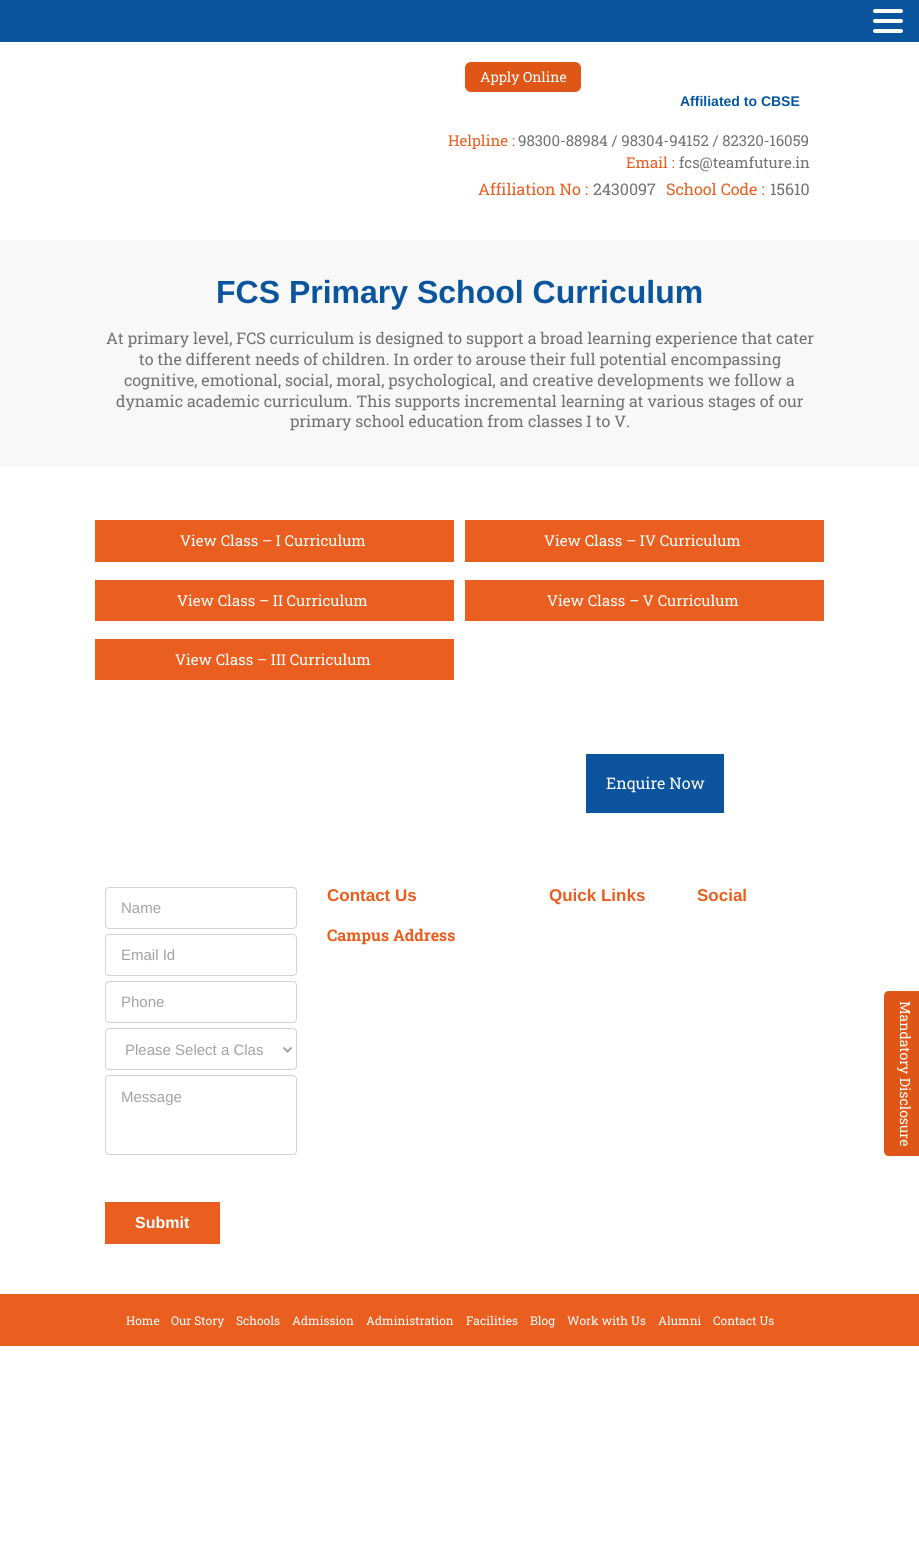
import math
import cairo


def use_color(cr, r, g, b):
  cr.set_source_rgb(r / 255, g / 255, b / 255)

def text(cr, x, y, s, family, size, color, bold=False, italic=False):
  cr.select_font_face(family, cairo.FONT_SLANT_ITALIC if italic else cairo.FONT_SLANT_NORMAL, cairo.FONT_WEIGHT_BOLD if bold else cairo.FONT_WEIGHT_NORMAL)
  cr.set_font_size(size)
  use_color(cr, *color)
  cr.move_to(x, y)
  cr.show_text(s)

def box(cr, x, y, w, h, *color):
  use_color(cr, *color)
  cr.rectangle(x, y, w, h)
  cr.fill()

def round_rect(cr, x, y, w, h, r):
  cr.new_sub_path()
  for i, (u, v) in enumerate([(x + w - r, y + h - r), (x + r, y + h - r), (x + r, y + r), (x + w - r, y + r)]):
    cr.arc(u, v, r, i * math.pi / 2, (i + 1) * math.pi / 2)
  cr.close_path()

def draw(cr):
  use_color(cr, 255, 255, 255)
  cr.paint()
  box(cr, 0, 0, 919, 42, 11, 84, 158)
  use_color(cr, 255, 255, 255)
  round_rect(cr, 873, 9, 30, 4, 2)
  cr.fill()
  round_rect(cr, 873, 19, 30, 4, 2)
  cr.fill()
  round_rect(cr, 873, 29, 30, 4, 2)
  cr.fill()
  use_color(cr, 224, 86, 23)
  round_rect(cr, 465, 62, 116, 30, 6)
  cr.fill()
  cr.new_path()
  cr.move_to(919, 991)
  cr.line_to(919, 1156)
  cr.line_to(889, 1156)
  cr.curve_to(886, 1156, 884, 1154, 884, 1151)
  cr.line_to(884, 996)
  cr.curve_to(884, 993, 886, 991, 889, 991)
  cr.close_path()
  cr.fill()
  box(cr, 0, 240, 919, 227, 248, 248, 248)
  box(cr, 95, 520, 359, 42, 234, 94, 32)
  box(cr, 95, 580, 359, 41, 234, 94, 32)
  box(cr, 95, 639, 359, 41, 234, 94, 32)
  box(cr, 465, 520, 359, 42, 234, 94, 32)
  box(cr, 465, 580, 359, 41, 234, 94, 32)
  box(cr, 586, 754, 138, 59, 12, 84, 158)
  round_rect(cr, 105.5, 887.5, 191, 41, 3.5)
  use_color(cr, 211, 211, 211)
  cr.set_line_width(1)
  cr.stroke()
  round_rect(cr, 105.5, 934.5, 191, 41, 3.5)
  cr.stroke()
  round_rect(cr, 105.5, 981.5, 191, 41, 3.5)
  cr.stroke()
  round_rect(cr, 105.5, 1028.5, 191, 41, 3.5)
  cr.stroke()
  cr.new_path()
  cr.move_to(283.5, 1047.5)
  cr.line_to(287.5, 1051.5)
  cr.line_to(291.5, 1047.5)
  use_color(cr, 162, 162, 162)
  cr.set_line_width(2)
  cr.stroke()
  round_rect(cr, 105.5, 1075.5, 191, 79, 3.5)
  use_color(cr, 211, 211, 211)
  cr.set_line_width(1)
  cr.stroke()
  box(cr, 105, 1202, 115, 42, 234, 94, 32)
  box(cr, 0, 1294, 919, 52, 234, 94, 32)
  text(cr, 480, 82, "Apply Online", "Roboto Slab", 14, (255, 255, 255))
  text(cr, 680, 106, "Affiliated to CBSE", "Liberation Sans", 14, (5, 86, 157), bold=True)
  text(cr, 448, 146, "Helpline :", "Roboto Slab", 15, (233, 93, 31))
  text(cr, 518, 146, "98300-88984 / 98304-94152 / 82320-16059", "Roboto Slab", 15, (114, 114, 114))
  text(cr, 626, 168, "Email :", "Roboto Slab", 15, (233, 93, 31))
  text(cr, 679, 168, "fcs@teamfuture.in", "Roboto Slab", 15, (114, 114, 114))
  text(cr, 478, 195, "Affiliation No :", "Roboto Slab", 16, (233, 93, 31))
  text(cr, 593, 195, "2430097", "Roboto Slab", 16, (114, 114, 114))
  text(cr, 666, 195, "School Code :", "Roboto Slab", 16, (233, 93, 31))
  text(cr, 770, 195, "15610", "Roboto Slab", 16, (114, 114, 114))
  cr.save()
  cr.translate(900, 1001)
  cr.rotate(90 * math.pi / 180)
  text(cr, 0, 0, "Mandatory Disclosure", "Roboto Slab", 14, (255, 255, 255))
  cr.restore()
  text(cr, 216, 303, "FCS Primary School Curriculum", "Liberation Sans", 32, (11, 85, 158), bold=True)
  text(cr, 106, 344, "At primary level, FCS curriculum is designed to support a broad learning experience that cater", "Roboto Slab", 16, (114, 114, 114))
  text(cr, 139, 365, "to the different needs of children. In order to arouse their full potential encompassing", "Roboto Slab", 16, (114, 114, 114))
  text(cr, 124, 386, "cognitive, emotional, social, moral, psychological, and creative developments we follow a", "Roboto Slab", 16, (114, 114, 114))
  text(cr, 116, 407, "dynamic academic curriculum. This supports incremental learning at various stages of our", "Roboto Slab", 16, (114, 114, 114))
  text(cr, 290, 427, "primary school education from classes I to V.", "Roboto Slab", 16, (114, 114, 114))
  text(cr, 180, 546, "View Class – I Curriculum", "Roboto Slab", 15, (255, 255, 255))
  text(cr, 177, 606, "View Class – II Curriculum", "Roboto Slab", 15, (255, 255, 255))
  text(cr, 175, 665, "View Class – III Curriculum", "Roboto Slab", 15, (255, 255, 255))
  text(cr, 544, 546, "View Class – IV Curriculum", "Roboto Slab", 15, (255, 255, 255))
  text(cr, 547, 606, "View Class – V Curriculum", "Roboto Slab", 15, (255, 255, 255))
  text(cr, 606, 789, "Enquire Now", "Roboto Slab", 16, (255, 255, 255))
  text(cr, 121, 913, "Name", "Liberation Sans", 15, (162, 162, 162))
  text(cr, 121, 960, "Email Id", "Liberation Sans", 15, (162, 162, 162))
  text(cr, 121, 1007, "Phone", "Liberation Sans", 15, (162, 162, 162))
  text(cr, 125, 1055, "Please Select a Clas", "Liberation Sans", 15, (162, 162, 162))
  text(cr, 121, 1102, "Message", "Liberation Sans", 15, (162, 162, 162))
  text(cr, 135, 1228, "Submit", "Liberation Sans", 16, (255, 255, 255), bold=True)
  text(cr, 327, 901, "Contact Us", "Liberation Sans", 17, (233, 93, 31), bold=True)
  text(cr, 327, 941, "Campus Address", "Roboto Slab", 16, (233, 93, 31), bold=True)
  text(cr, 549, 901, "Quick Links", "Liberation Sans", 17, (233, 93, 31), bold=True)
  text(cr, 697, 901, "Social", "Liberation Sans", 17, (233, 93, 31), bold=True)
  text(cr, 126, 1325, "Home", "Roboto Slab", 12, (255, 255, 255))
  text(cr, 171, 1325, "Our Story", "Roboto Slab", 12, (255, 255, 255))
  text(cr, 236, 1325, "Schools", "Roboto Slab", 12, (255, 255, 255))
  text(cr, 292, 1325, "Admission", "Roboto Slab", 12, (255, 255, 255))
  text(cr, 366, 1325, "Administration", "Roboto Slab", 12, (255, 255, 255))
  text(cr, 466, 1325, "Facilities", "Roboto Slab", 12, (255, 255, 255))
  text(cr, 530, 1325, "Blog", "Roboto Slab", 12, (255, 255, 255))
  text(cr, 567, 1325, "Work with Us", "Roboto Slab", 12, (255, 255, 255))
  text(cr, 658, 1325, "Alumni", "Roboto Slab", 12, (255, 255, 255))
  text(cr, 713, 1325, "Contact Us", "Roboto Slab", 12, (255, 255, 255))


surface = cairo.ImageSurface(cairo.FORMAT_RGB24, 919, 1553)
cr = cairo.Context(surface)
options = cairo.FontOptions()
options.set_hint_metrics(cairo.HINT_METRICS_OFF)
options.set_hint_style(cairo.HINT_STYLE_NONE)
cr.set_font_options(options)
cr.set_miter_limit(4)
draw(cr)
surface.write_to_png("out.png")
